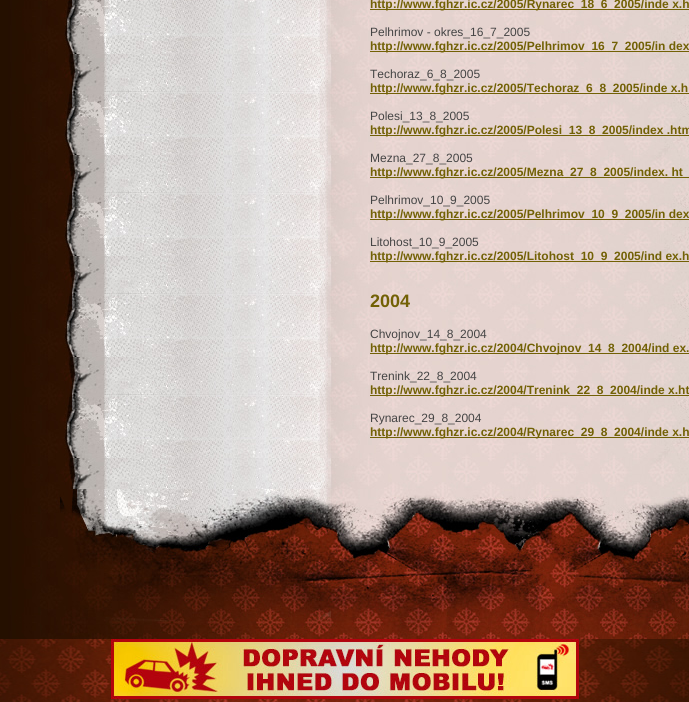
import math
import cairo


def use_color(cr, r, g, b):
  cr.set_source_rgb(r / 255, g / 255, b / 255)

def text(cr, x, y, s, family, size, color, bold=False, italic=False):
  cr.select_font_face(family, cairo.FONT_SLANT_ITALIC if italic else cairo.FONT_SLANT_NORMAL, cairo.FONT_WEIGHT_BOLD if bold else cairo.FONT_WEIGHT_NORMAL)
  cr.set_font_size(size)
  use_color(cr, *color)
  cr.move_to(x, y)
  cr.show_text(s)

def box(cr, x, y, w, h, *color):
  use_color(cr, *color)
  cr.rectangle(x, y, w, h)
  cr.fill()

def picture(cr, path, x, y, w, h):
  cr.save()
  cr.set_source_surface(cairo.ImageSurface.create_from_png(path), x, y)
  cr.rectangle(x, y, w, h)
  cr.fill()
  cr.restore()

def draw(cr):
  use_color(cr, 255, 255, 255)
  cr.paint()
  picture(cr, "img_01.png", 0, 639, 689, 63)
  picture(cr, "img_02.png", 0, 0, 689, 639)
  box(cr, 370, 9, 319, 1, 114, 97, 5)
  box(cr, 370, 51, 319, 1, 114, 97, 5)
  box(cr, 370, 93, 319, 1, 114, 97, 5)
  box(cr, 370, 135, 319, 1, 114, 97, 5)
  box(cr, 370, 177, 319, 1, 114, 97, 5)
  box(cr, 370, 219, 319, 1, 114, 97, 5)
  box(cr, 370, 261, 319, 1, 114, 97, 5)
  box(cr, 370, 353, 319, 1, 114, 97, 5)
  box(cr, 370, 395, 319, 1, 114, 97, 5)
  box(cr, 370, 437, 319, 1, 114, 97, 5)
  picture(cr, "img_03.png", 41, 489, 648, 150)
  picture(cr, "img_04.png", 111, 639, 468, 60)
  text(cr, 370, 8, "http://www.fghzr.ic.cz/2005/Rynarec_18_6_2005/inde x.h", "Liberation Sans", 12, (114, 97, 5), bold=True)
  text(cr, 370, 36, "Pelhrimov - okres_16_7_2005", "Liberation Sans", 12, (68, 68, 68))
  text(cr, 370, 50, "http://www.fghzr.ic.cz/2005/Pelhrimov_16_7_2005/in dex", "Liberation Sans", 12, (114, 97, 5), bold=True)
  text(cr, 370, 78, "Techoraz_6_8_2005", "Liberation Sans", 12, (68, 68, 68))
  text(cr, 370, 92, "http://www.fghzr.ic.cz/2005/Techoraz_6_8_2005/inde x.h", "Liberation Sans", 12, (114, 97, 5), bold=True)
  text(cr, 370, 120, "Polesi_13_8_2005", "Liberation Sans", 12, (68, 68, 68))
  text(cr, 370, 134, "http://www.fghzr.ic.cz/2005/Polesi_13_8_2005/index .htm", "Liberation Sans", 12, (114, 97, 5), bold=True)
  text(cr, 370, 162, "Mezna_27_8_2005", "Liberation Sans", 12, (68, 68, 68))
  text(cr, 370, 176, "http://www.fghzr.ic.cz/2005/Mezna_27_8_2005/index. ht", "Liberation Sans", 12, (114, 97, 5), bold=True)
  text(cr, 370, 204, "Pelhrimov_10_9_2005", "Liberation Sans", 12, (68, 68, 68))
  text(cr, 370, 218, "http://www.fghzr.ic.cz/2005/Pelhrimov_10_9_2005/in dex", "Liberation Sans", 12, (114, 97, 5), bold=True)
  text(cr, 370, 246, "Litohost_10_9_2005", "Liberation Sans", 12, (68, 68, 68))
  text(cr, 370, 260, "http://www.fghzr.ic.cz/2005/Litohost_10_9_2005/ind ex.h", "Liberation Sans", 12, (114, 97, 5), bold=True)
  text(cr, 370, 307, "2004", "Liberation Sans", 18, (114, 97, 5), bold=True)
  text(cr, 370, 338, "Chvojnov_14_8_2004", "Liberation Sans", 12, (68, 68, 68))
  text(cr, 370, 352, "http://www.fghzr.ic.cz/2004/Chvojnov_14_8_2004/ind ex.", "Liberation Sans", 12, (114, 97, 5), bold=True)
  text(cr, 370, 380, "Trenink_22_8_2004", "Liberation Sans", 12, (68, 68, 68))
  text(cr, 370, 394, "http://www.fghzr.ic.cz/2004/Trenink_22_8_2004/inde x.ht", "Liberation Sans", 12, (114, 97, 5), bold=True)
  text(cr, 370, 422, "Rynarec_29_8_2004", "Liberation Sans", 12, (68, 68, 68))
  text(cr, 370, 436, "http://www.fghzr.ic.cz/2004/Rynarec_29_8_2004/inde x.h", "Liberation Sans", 12, (114, 97, 5), bold=True)


surface = cairo.ImageSurface(cairo.FORMAT_RGB24, 689, 702)
cr = cairo.Context(surface)
options = cairo.FontOptions()
options.set_hint_metrics(cairo.HINT_METRICS_OFF)
options.set_hint_style(cairo.HINT_STYLE_NONE)
cr.set_font_options(options)
cr.set_miter_limit(4)
draw(cr)
surface.write_to_png("out.png")
